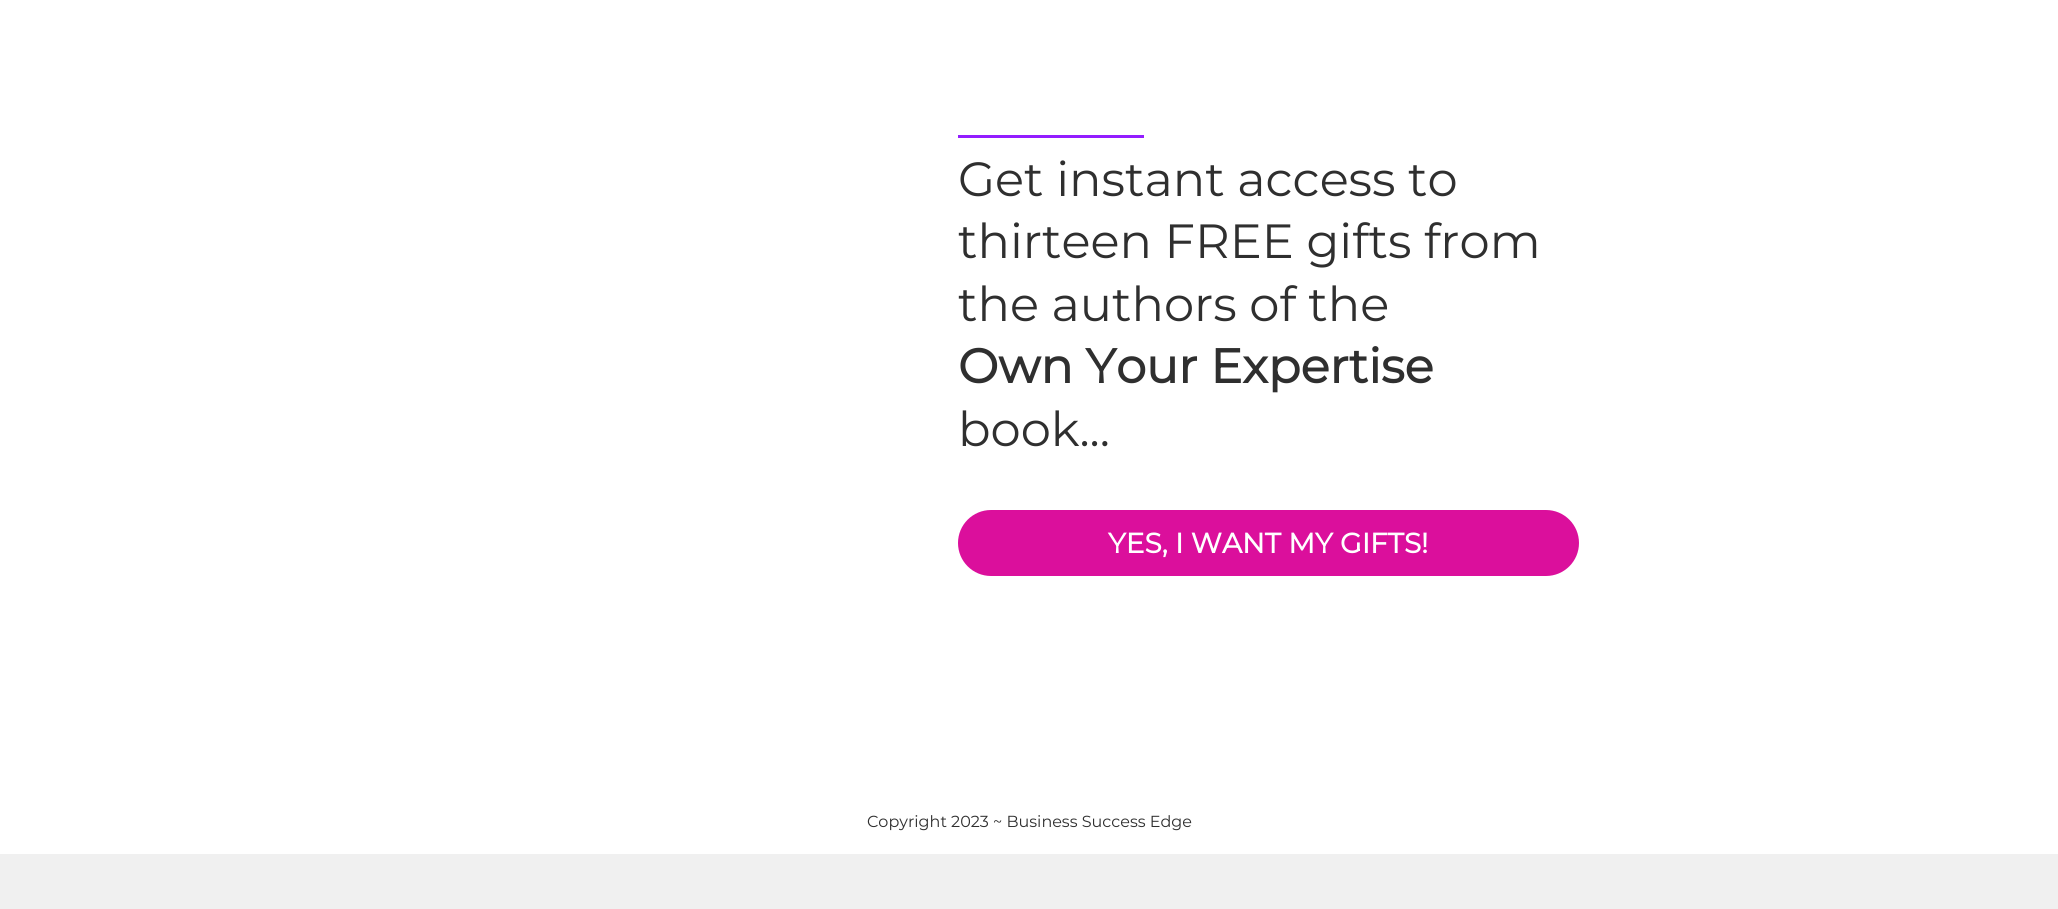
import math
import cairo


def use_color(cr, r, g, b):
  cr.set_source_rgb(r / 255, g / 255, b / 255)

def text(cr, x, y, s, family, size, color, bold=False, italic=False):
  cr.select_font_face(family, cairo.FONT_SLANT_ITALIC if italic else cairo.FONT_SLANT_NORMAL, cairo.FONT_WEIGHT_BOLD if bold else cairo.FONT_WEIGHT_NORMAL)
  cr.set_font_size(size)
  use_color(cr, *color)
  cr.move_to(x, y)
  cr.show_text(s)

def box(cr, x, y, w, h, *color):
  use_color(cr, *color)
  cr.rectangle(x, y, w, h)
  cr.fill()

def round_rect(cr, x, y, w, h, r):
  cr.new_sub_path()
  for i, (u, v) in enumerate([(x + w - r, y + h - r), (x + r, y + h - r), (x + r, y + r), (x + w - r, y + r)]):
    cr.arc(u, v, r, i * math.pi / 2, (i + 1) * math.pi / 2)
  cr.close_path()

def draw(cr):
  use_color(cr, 240, 240, 240)
  cr.paint()
  box(cr, 0, 0, 2058, 854, 255, 255, 255)
  box(cr, 958, 135, 186, 3, 147, 29, 255)
  use_color(cr, 219, 15, 156)
  round_rect(cr, 958, 510, 621, 66, 33)
  cr.fill()
  text(cr, 958, 196, "Get instant access to", "Montserrat Thin", 48, (47, 47, 47))
  text(cr, 958, 258, "thirteen FREE gifts from", "Montserrat Thin", 48, (47, 47, 47))
  text(cr, 958, 321, "the authors of the", "Montserrat Thin", 48, (47, 47, 47))
  text(cr, 958, 383, "Own Your Expertise", "Montserrat", 48, (47, 47, 47), bold=True)
  text(cr, 958, 446, "book...", "Montserrat Thin", 48, (47, 47, 47))
  text(cr, 1108, 553, "YES, I WANT MY GIFTS!", "Montserrat", 28, (255, 255, 255), bold=True)
  text(cr, 867, 827, "Copyright 2023 ~ Business Success Edge", "Montserrat Thin", 16, (47, 47, 47))


surface = cairo.ImageSurface(cairo.FORMAT_RGB24, 2058, 909)
cr = cairo.Context(surface)
options = cairo.FontOptions()
options.set_hint_metrics(cairo.HINT_METRICS_OFF)
options.set_hint_style(cairo.HINT_STYLE_NONE)
cr.set_font_options(options)
cr.set_miter_limit(4)
draw(cr)
surface.write_to_png("out.png")
